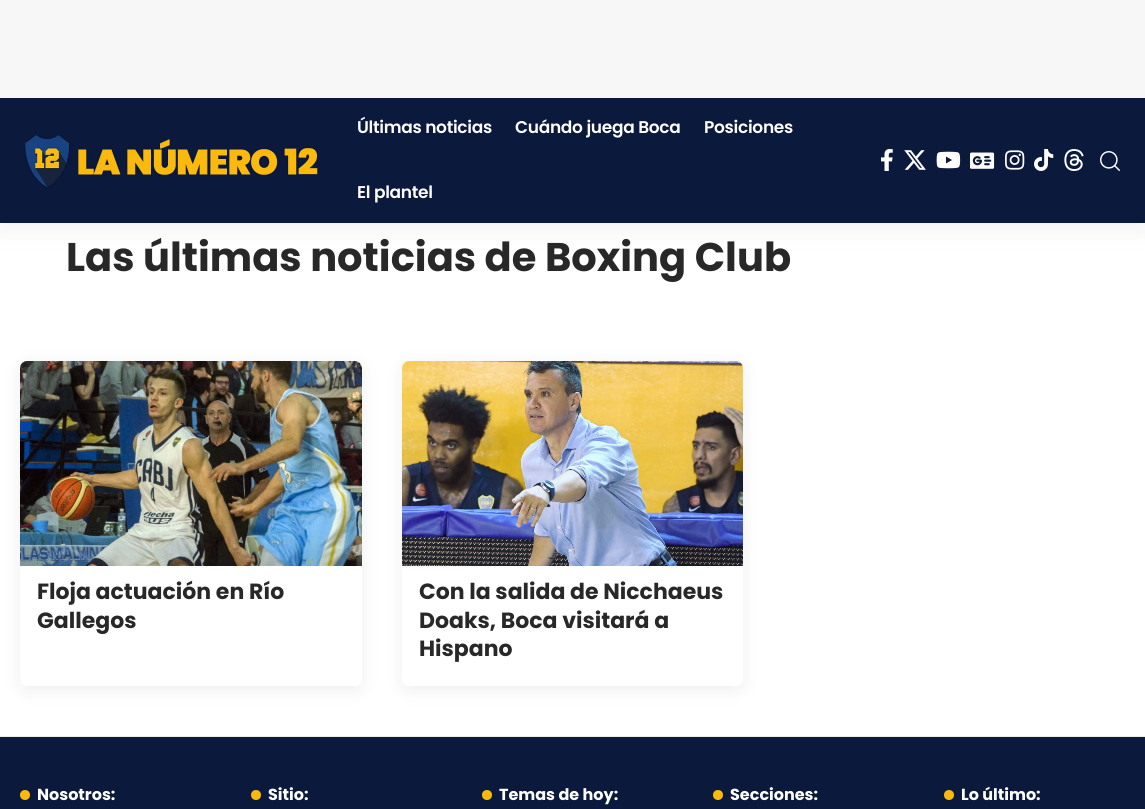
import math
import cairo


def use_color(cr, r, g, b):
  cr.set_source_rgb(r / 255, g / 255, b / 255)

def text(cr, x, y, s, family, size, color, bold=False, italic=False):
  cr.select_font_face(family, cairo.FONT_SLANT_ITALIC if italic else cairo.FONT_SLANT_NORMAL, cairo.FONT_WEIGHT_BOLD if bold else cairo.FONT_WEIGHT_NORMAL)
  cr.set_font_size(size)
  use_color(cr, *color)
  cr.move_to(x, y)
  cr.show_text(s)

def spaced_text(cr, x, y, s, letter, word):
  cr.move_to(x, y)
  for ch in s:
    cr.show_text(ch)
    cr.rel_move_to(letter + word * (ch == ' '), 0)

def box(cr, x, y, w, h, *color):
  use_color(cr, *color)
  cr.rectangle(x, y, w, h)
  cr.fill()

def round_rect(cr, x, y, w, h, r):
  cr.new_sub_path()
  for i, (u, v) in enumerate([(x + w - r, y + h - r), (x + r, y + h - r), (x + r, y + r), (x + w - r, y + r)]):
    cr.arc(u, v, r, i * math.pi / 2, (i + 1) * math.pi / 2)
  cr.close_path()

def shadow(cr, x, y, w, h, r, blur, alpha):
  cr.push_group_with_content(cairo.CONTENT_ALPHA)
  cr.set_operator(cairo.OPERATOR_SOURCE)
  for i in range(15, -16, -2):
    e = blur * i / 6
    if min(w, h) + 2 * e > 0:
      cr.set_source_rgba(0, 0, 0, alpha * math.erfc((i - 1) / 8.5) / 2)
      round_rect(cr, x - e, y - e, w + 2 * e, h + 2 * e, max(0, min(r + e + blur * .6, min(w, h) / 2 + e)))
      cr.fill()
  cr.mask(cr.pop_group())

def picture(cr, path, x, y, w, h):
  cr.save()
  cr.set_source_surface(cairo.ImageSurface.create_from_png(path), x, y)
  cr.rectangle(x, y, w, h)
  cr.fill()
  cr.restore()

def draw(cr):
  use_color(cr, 255, 255, 255)
  cr.paint()
  box(cr, 0, 0, 1145, 98, 247, 247, 247)
  cr.save()
  cr.rectangle(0, 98, 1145, 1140)
  cr.clip()
  use_color(cr, 0, 0, 0)
  shadow(cr, 0, 102, 1145, 125, 0, 15, 0.07)
  cr.restore()
  box(cr, 0, 98, 1145, 125, 11, 25, 61)
  picture(cr, "img_01.png", 24, 135, 294, 53)
  picture(cr, "img_02.png", 881, 149, 12, 22)
  picture(cr, "img_03.png", 904, 150, 22, 20)
  picture(cr, "img_04.png", 936, 151, 25, 18)
  picture(cr, "img_05.png", 970, 152, 25, 17)
  picture(cr, "img_06.png", 1005, 150, 20, 20)
  picture(cr, "img_07.png", 1034, 149, 20, 22)
  picture(cr, "img_08.png", 1064, 149, 20, 22)
  picture(cr, "img_09.png", 1100, 151, 20, 20)
  cr.save()
  cr.set_fill_rule(cairo.FILL_RULE_EVEN_ODD)
  cr.new_path()
  cr.move_to(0, 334)
  cr.line_to(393, 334)
  cr.line_to(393, 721)
  cr.line_to(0, 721)
  cr.close_path()
  cr.move_to(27, 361)
  cr.line_to(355, 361)
  cr.curve_to(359, 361, 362, 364, 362, 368)
  cr.line_to(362, 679)
  cr.curve_to(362, 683, 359, 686, 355, 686)
  cr.line_to(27, 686)
  cr.curve_to(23, 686, 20, 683, 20, 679)
  cr.line_to(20, 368)
  cr.curve_to(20, 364, 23, 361, 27, 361)
  cr.close_path()
  cr.clip()
  use_color(cr, 0, 0, 0)
  shadow(cr, 20, 365, 342, 325, 7, 10, 0.07)
  cr.restore()
  picture(cr, "img_10.png", 20, 361, 342, 205)
  cr.save()
  cr.set_fill_rule(cairo.FILL_RULE_EVEN_ODD)
  cr.new_path()
  cr.move_to(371, 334)
  cr.line_to(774, 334)
  cr.line_to(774, 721)
  cr.line_to(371, 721)
  cr.close_path()
  cr.move_to(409, 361)
  cr.line_to(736, 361)
  cr.curve_to(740, 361, 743, 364, 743, 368)
  cr.line_to(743, 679)
  cr.curve_to(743, 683, 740, 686, 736, 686)
  cr.line_to(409, 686)
  cr.curve_to(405, 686, 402, 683, 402, 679)
  cr.line_to(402, 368)
  cr.curve_to(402, 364, 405, 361, 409, 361)
  cr.close_path()
  cr.clip()
  use_color(cr, 0, 0, 0)
  shadow(cr, 402, 365, 341, 325, 7, 10, 0.07)
  cr.restore()
  picture(cr, "img_11.png", 402, 361, 341, 205)
  box(cr, 0, 736, 1145, 1, 237, 237, 237)
  box(cr, 0, 737, 1145, 72, 11, 25, 61)
  use_color(cr, 250, 185, 11)
  cr.arc(25, 795, 5, 0, 2 * math.pi)
  cr.fill()
  cr.arc(256, 795, 5, 0, 2 * math.pi)
  cr.fill()
  cr.arc(487, 795, 5, 0, 2 * math.pi)
  cr.fill()
  cr.arc(718, 795, 5, 0, 2 * math.pi)
  cr.fill()
  cr.arc(949, 795, 5, 0, 2 * math.pi)
  cr.fill()
  cr.select_font_face("Poppins SemiBold")
  cr.set_font_size(17)
  use_color(cr, 255, 255, 255)
  spaced_text(cr, 357, 133, "Últimas noticias", -0.3, 0)
  spaced_text(cr, 515, 133, "Cuándo juega Boca", -0.3, 0)
  spaced_text(cr, 704, 133, "Posiciones", -0.3, 0)
  spaced_text(cr, 357, 198, "El plantel", -0.3, 0)
  text(cr, 66, 271, "Las últimas noticias de Boxing Club", "Poppins", 40, (40, 40, 40), bold=True)
  text(cr, 37, 599, "Floja actuación en Río", "Poppins", 22, (40, 40, 40), bold=True)
  text(cr, 37, 628, "Gallegos", "Poppins", 22, (40, 40, 40), bold=True)
  text(cr, 419, 599, "Con la salida de Nicchaeus", "Poppins", 22, (40, 40, 40), bold=True)
  text(cr, 419, 628, "Doaks, Boca visitará a", "Poppins", 22, (40, 40, 40), bold=True)
  text(cr, 419, 656, "Hispano", "Poppins", 22, (40, 40, 40), bold=True)
  text(cr, 37, 800, "Nosotros:", "Poppins", 16, (255, 255, 255), bold=True)
  text(cr, 268, 800, "Sitio:", "Poppins", 16, (255, 255, 255), bold=True)
  text(cr, 499, 800, "Temas de hoy:", "Poppins", 16, (255, 255, 255), bold=True)
  text(cr, 730, 800, "Secciones:", "Poppins", 16, (255, 255, 255), bold=True)
  text(cr, 961, 800, "Lo último:", "Poppins", 16, (255, 255, 255), bold=True)


surface = cairo.ImageSurface(cairo.FORMAT_RGB24, 1145, 809)
cr = cairo.Context(surface)
options = cairo.FontOptions()
options.set_hint_metrics(cairo.HINT_METRICS_OFF)
options.set_hint_style(cairo.HINT_STYLE_NONE)
cr.set_font_options(options)
cr.set_miter_limit(4)
draw(cr)
surface.write_to_png("out.png")
